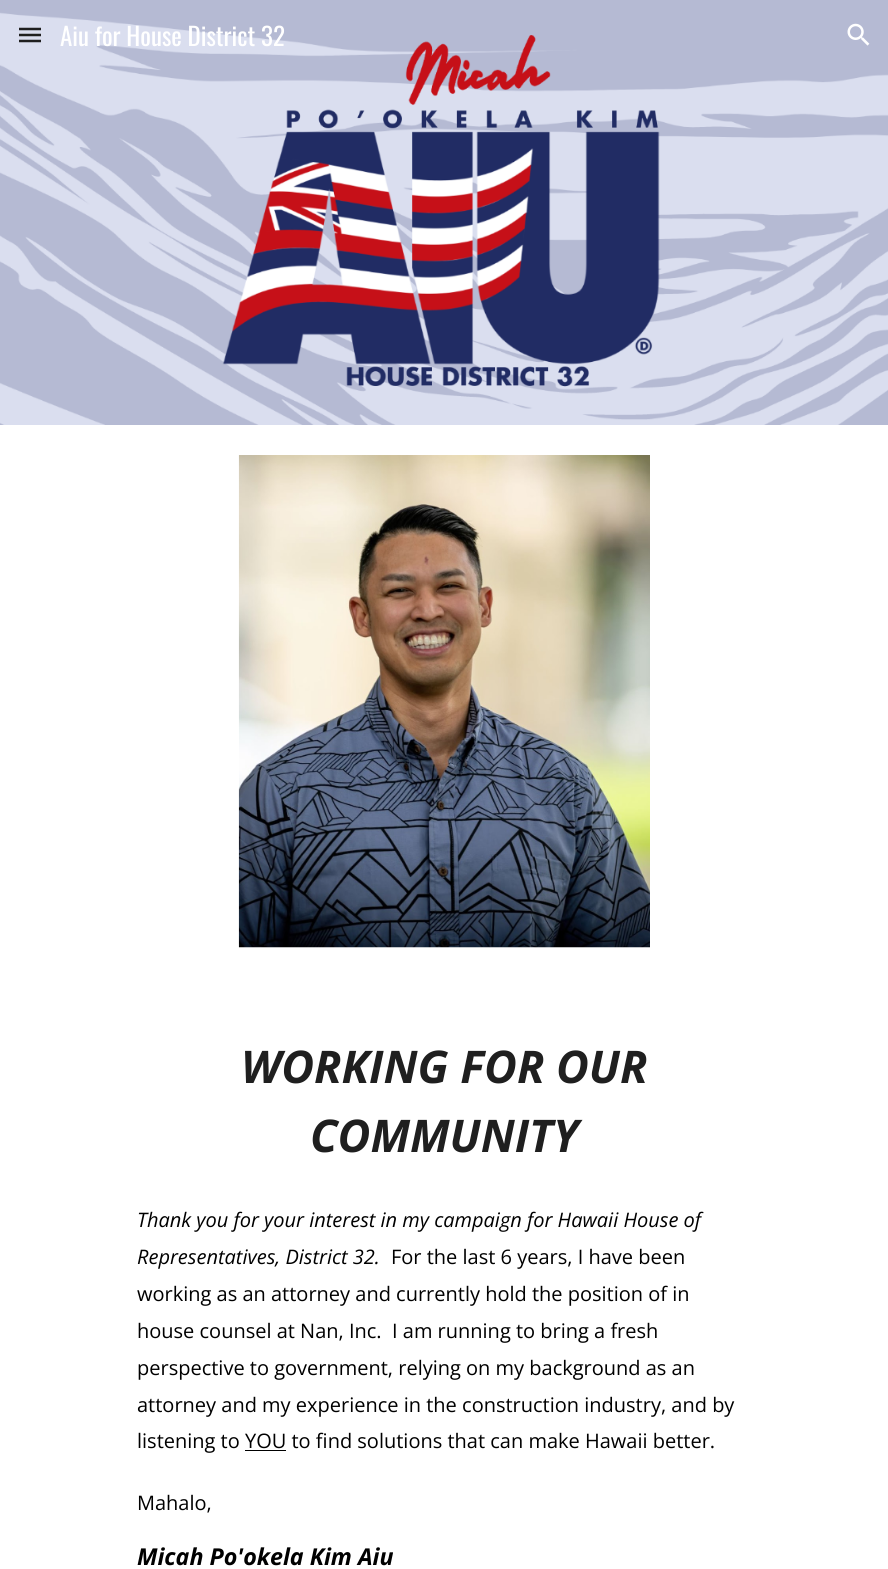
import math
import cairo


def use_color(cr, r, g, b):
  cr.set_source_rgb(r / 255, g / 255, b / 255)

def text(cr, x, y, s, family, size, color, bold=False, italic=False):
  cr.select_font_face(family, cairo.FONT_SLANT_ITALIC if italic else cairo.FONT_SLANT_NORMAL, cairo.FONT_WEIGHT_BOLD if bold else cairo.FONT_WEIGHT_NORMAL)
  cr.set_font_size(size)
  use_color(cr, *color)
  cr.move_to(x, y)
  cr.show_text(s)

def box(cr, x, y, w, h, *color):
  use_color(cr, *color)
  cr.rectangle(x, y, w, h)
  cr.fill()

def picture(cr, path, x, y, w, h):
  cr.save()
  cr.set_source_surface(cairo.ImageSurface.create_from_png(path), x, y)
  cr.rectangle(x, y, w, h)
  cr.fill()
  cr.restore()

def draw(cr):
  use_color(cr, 255, 255, 255)
  cr.paint()
  picture(cr, "img_02.png", 0, 0, 888, 425)
  cr.new_path()
  cr.move_to(19, 29)
  cr.line_to(41, 29)
  cr.move_to(19, 35)
  cr.line_to(41, 35)
  cr.move_to(19, 41)
  cr.line_to(41, 41)
  use_color(cr, 31, 31, 31)
  cr.set_line_width(2.5)
  cr.stroke()
  picture(cr, "img_01.png", 847, 23, 23, 23)
  picture(cr, "img_03.png", 238, 455, 412, 493)
  box(cr, 245, 1450, 41, 1, 0, 0, 0)
  text(cr, 60, 46, "Aiu for House District 32", "Oswald", 25, (255, 255, 255))
  text(cr, 241, 1083, "WORKING FOR OUR", "Open Sans", 45, (31, 31, 31), bold=True, italic=True)
  text(cr, 310, 1152, "COMMUNITY", "Open Sans", 45, (31, 31, 31), bold=True, italic=True)
  text(cr, 137, 1227, "Thank you for your interest in my campaign for Hawaii House of", "Open Sans", 20, (0, 0, 0), italic=True)
  text(cr, 137, 1264, "Representatives, District 32.", "Open Sans", 20, (0, 0, 0), italic=True)
  text(cr, 391, 1264, "For the last 6 years, I have been", "Open Sans", 20, (0, 0, 0))
  text(cr, 137, 1301, "working as an attorney and currently hold the position of in", "Open Sans", 20, (0, 0, 0))
  text(cr, 137, 1338, "house counsel at Nan, Inc.  I am running to bring a fresh", "Open Sans", 20, (0, 0, 0))
  text(cr, 137, 1375, "perspective to government, relying on my background as an", "Open Sans", 20, (0, 0, 0))
  text(cr, 137, 1412, "attorney and my experience in the construction industry, and by", "Open Sans", 20, (0, 0, 0))
  text(cr, 137, 1448, "listening to YOU to find solutions that can make Hawaii better.", "Open Sans", 20, (0, 0, 0))
  text(cr, 137, 1510, "Mahalo,", "Open Sans", 20, (0, 0, 0))
  text(cr, 137, 1565, "Micah Po'okela Kim Aiu", "Open Sans", 23.25, (0, 0, 0), bold=True, italic=True)


surface = cairo.ImageSurface(cairo.FORMAT_RGB24, 888, 1569)
cr = cairo.Context(surface)
options = cairo.FontOptions()
options.set_hint_metrics(cairo.HINT_METRICS_OFF)
options.set_hint_style(cairo.HINT_STYLE_NONE)
cr.set_font_options(options)
cr.set_miter_limit(4)
draw(cr)
surface.write_to_png("out.png")
